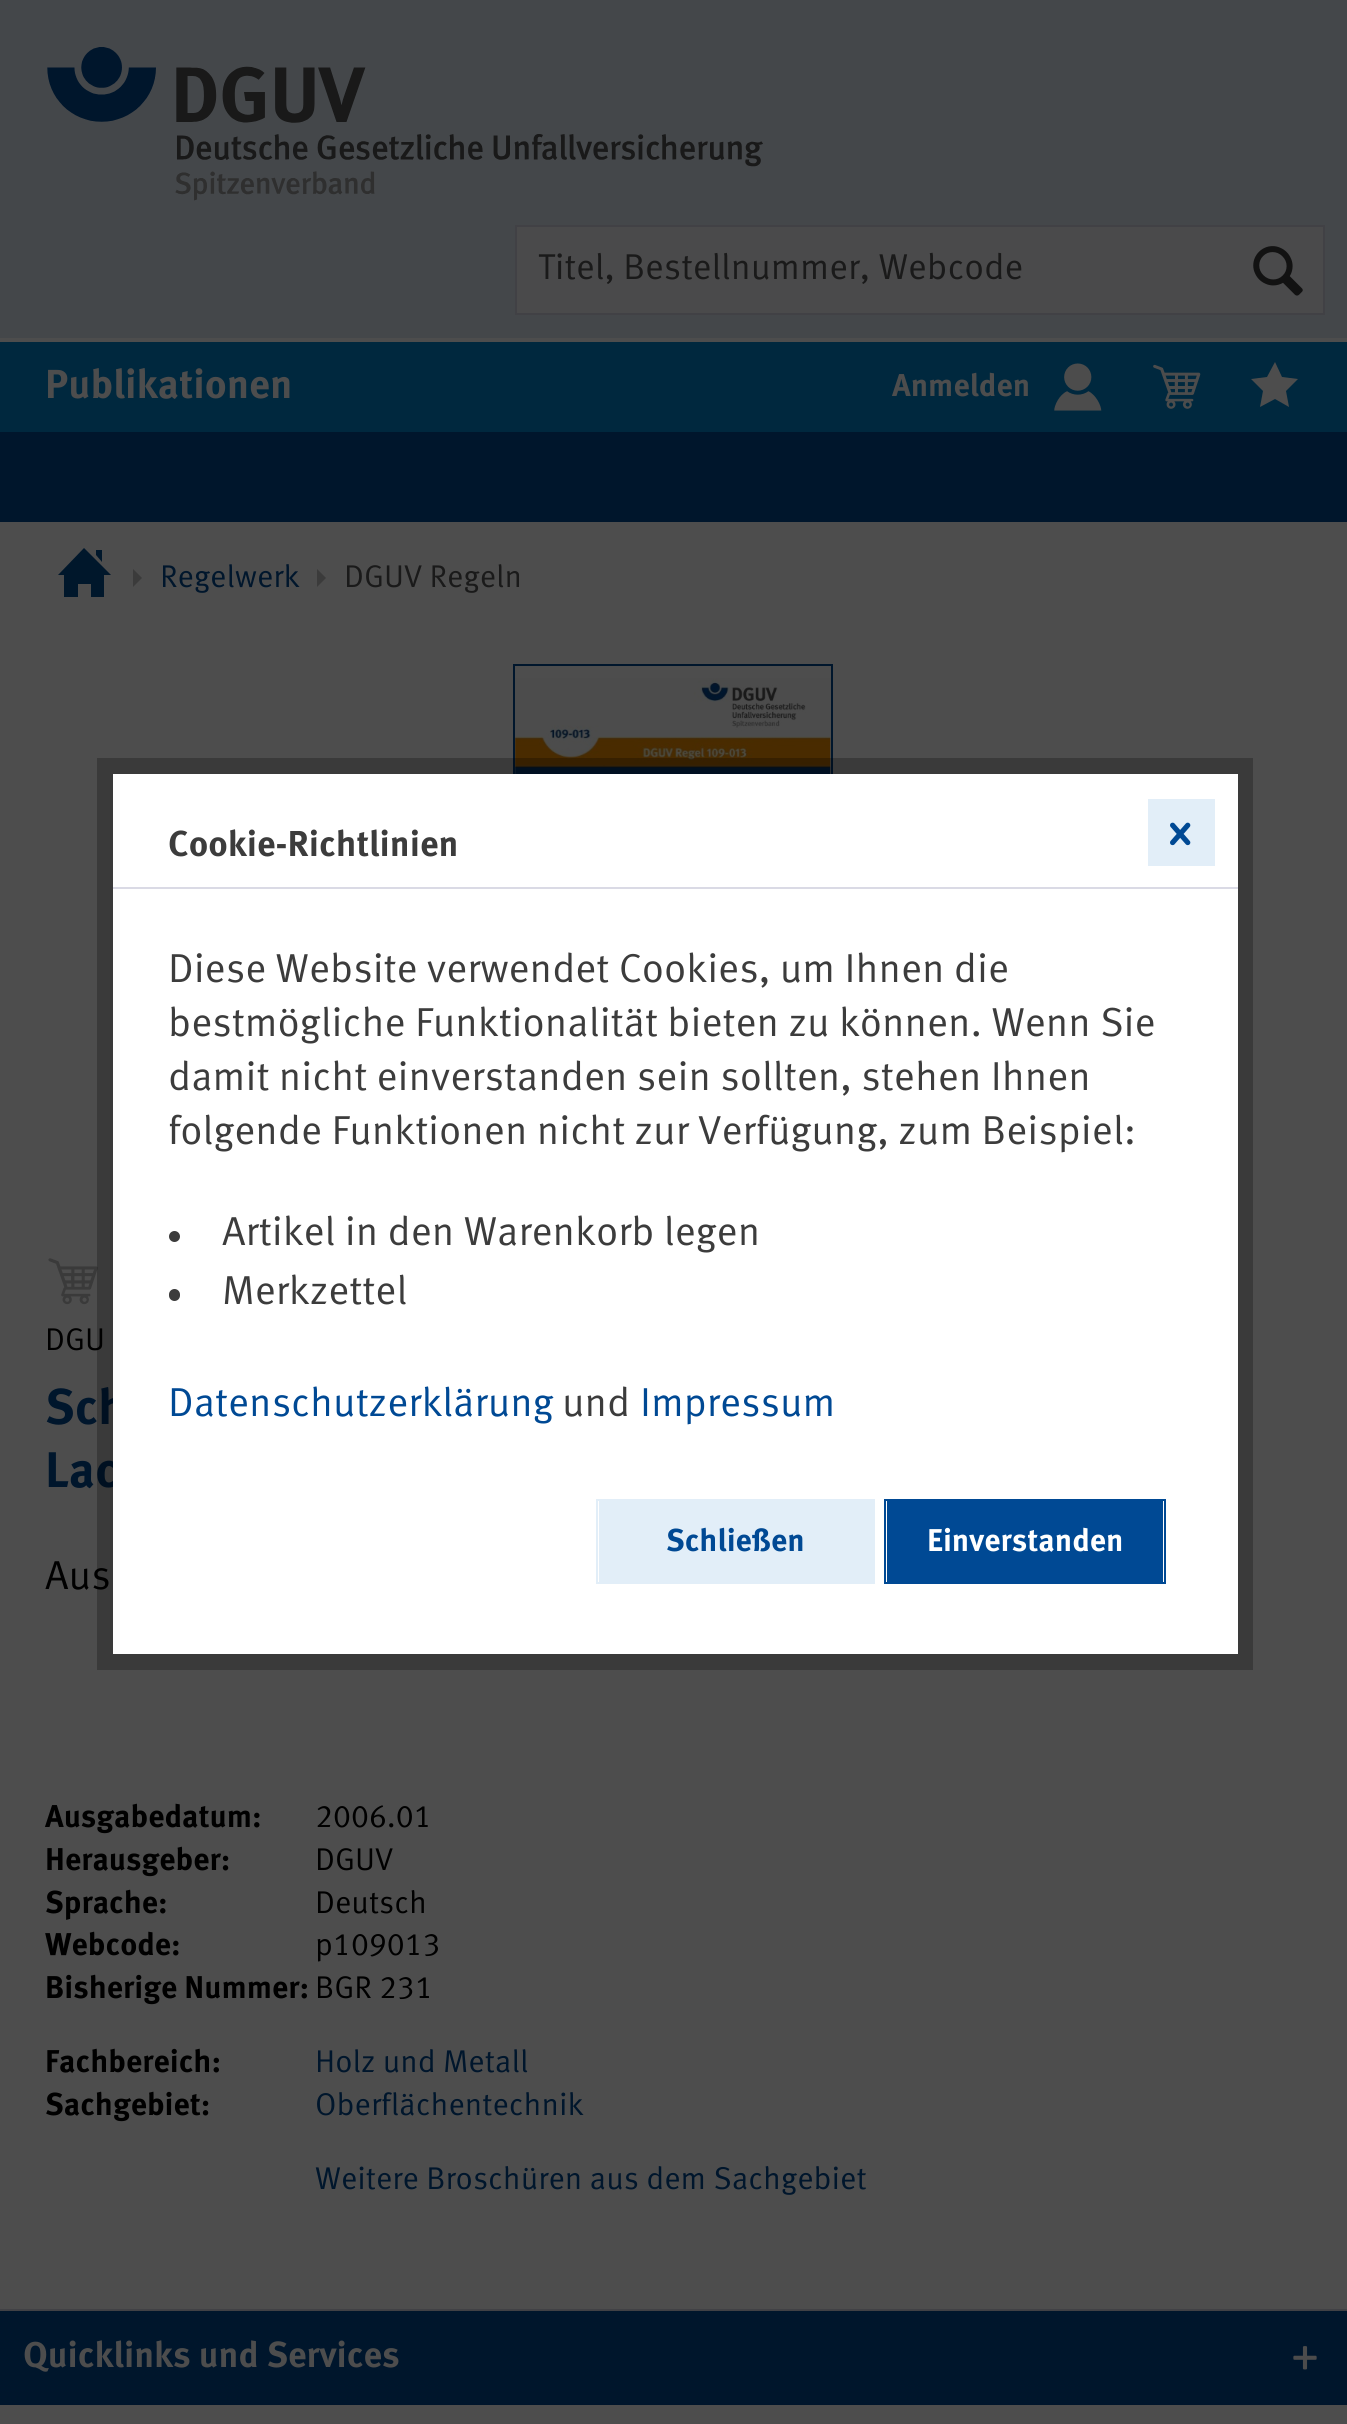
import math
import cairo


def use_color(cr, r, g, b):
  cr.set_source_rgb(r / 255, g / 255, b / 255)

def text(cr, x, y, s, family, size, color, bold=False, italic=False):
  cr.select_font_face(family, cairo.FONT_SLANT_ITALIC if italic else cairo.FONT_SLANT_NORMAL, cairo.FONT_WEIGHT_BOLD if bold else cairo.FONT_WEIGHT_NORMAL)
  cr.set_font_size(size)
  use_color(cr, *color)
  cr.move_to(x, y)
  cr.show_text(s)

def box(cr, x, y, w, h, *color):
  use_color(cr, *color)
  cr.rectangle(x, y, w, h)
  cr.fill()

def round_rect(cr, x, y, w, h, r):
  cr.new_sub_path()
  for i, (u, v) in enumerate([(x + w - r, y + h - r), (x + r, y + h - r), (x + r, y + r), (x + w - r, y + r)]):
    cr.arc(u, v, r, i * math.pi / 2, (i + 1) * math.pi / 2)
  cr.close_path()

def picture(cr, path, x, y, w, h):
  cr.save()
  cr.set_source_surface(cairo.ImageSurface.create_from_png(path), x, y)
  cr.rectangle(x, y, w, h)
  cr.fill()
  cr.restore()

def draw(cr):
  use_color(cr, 77, 77, 77)
  cr.paint()
  box(cr, 0, 0, 1347, 338, 68, 71, 74)
  picture(cr, "img_01.png", 47, 47, 716, 154)
  use_color(cr, 74, 74, 75)
  cr.rectangle(516, 226, 808, 88)
  cr.fill_preserve()
  use_color(cr, 65, 65, 69)
  cr.stroke()
  picture(cr, "img_02.png", 1253, 246, 50, 50)
  box(cr, 0, 342, 1347, 90, 0, 40, 62)
  picture(cr, "img_03.png", 1054, 363, 48, 48)
  picture(cr, "img_04.png", 1153, 364, 48, 45)
  use_color(cr, 77, 77, 77)
  cr.new_path()
  cr.move_to(1275, 362)
  cr.line_to(1282, 377)
  cr.line_to(1298, 379)
  cr.line_to(1286, 391)
  cr.line_to(1289, 407)
  cr.line_to(1275, 399)
  cr.line_to(1260, 407)
  cr.line_to(1263, 391)
  cr.line_to(1251, 379)
  cr.line_to(1267, 377)
  cr.close_path()
  cr.fill()
  box(cr, 0, 432, 1347, 90, 0, 22, 44)
  use_color(cr, 0, 23, 43)
  cr.new_path()
  cr.move_to(104, 575)
  cr.line_to(104, 597)
  cr.line_to(91, 597)
  cr.line_to(91, 584)
  cr.line_to(78, 584)
  cr.line_to(78, 597)
  cr.line_to(64, 597)
  cr.line_to(64, 575)
  cr.line_to(58, 575)
  cr.line_to(84, 548)
  cr.line_to(111, 575)
  cr.close_path()
  cr.move_to(102, 562)
  cr.line_to(102, 550)
  cr.line_to(96, 550)
  cr.line_to(96, 555)
  cr.close_path()
  cr.fill()
  use_color(cr, 59, 59, 59)
  cr.new_path()
  cr.move_to(133, 569)
  cr.line_to(142, 578)
  cr.line_to(133, 587)
  cr.close_path()
  cr.fill()
  cr.new_path()
  cr.move_to(317, 569)
  cr.line_to(326, 578)
  cr.line_to(317, 587)
  cr.close_path()
  cr.fill()
  cr.rectangle(514, 665, 318, 448)
  use_color(cr, 0, 22, 44)
  cr.stroke()
  picture(cr, "img_05.png", 515, 678, 316, 96)
  picture(cr, "img_06.png", 48, 1258, 50, 47)
  box(cr, 0, 2311, 1347, 94, 0, 22, 44)
  box(cr, 0, 2309, 1347, 2, 65, 65, 69)
  picture(cr, "img_07.png", 1293, 2346, 24, 24)
  text(cr, 538, 279, "Titel, Bestellnummer, Webcode", "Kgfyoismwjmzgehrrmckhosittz", 36, (26, 26, 26))
  text(cr, 45, 398, "Publikationen", "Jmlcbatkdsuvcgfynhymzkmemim", 40.5, (77, 77, 77), bold=True)
  text(cr, 892, 396, "Anmelden", "Jmlcbatkdsuvcgfynhymzkmemim", 31.5, (77, 77, 77), bold=True)
  text(cr, 160, 587, "Regelwerk", "Kgfyoismwjmzgehrrmckhosittz", 31.5, (0, 22, 44))
  text(cr, 344, 587, "DGUV Regeln", "Kgfyoismwjmzgehrrmckhosittz", 31.5, (26, 26, 26))
  text(cr, 45, 1350, "DGU", "Kgfyoismwjmzgehrrmckhosittz", 31.5, (0, 0, 0))
  text(cr, 45, 1424, "Sch", "Jmlcbatkdsuvcgfynhymzkmemim", 50, (0, 22, 44), bold=True)
  text(cr, 45, 1487, "Lac", "Jmlcbatkdsuvcgfynhymzkmemim", 50, (0, 22, 44), bold=True)
  text(cr, 45, 1589, "Aus", "Kgfyoismwjmzgehrrmckhosittz", 40.5, (0, 0, 0))
  text(cr, 45, 1827, "Ausgabedatum:", "Jmlcbatkdsuvcgfynhymzkmemim", 31.5, (0, 0, 0), bold=True)
  text(cr, 315, 1827, "2006.01", "Kgfyoismwjmzgehrrmckhosittz", 31.5, (0, 0, 0))
  text(cr, 45, 1870, "Herausgeber:", "Jmlcbatkdsuvcgfynhymzkmemim", 31.5, (0, 0, 0), bold=True)
  text(cr, 315, 1870, "DGUV", "Kgfyoismwjmzgehrrmckhosittz", 31.5, (0, 0, 0))
  text(cr, 45, 1913, "Sprache:", "Jmlcbatkdsuvcgfynhymzkmemim", 31.5, (0, 0, 0), bold=True)
  text(cr, 315, 1913, "Deutsch", "Kgfyoismwjmzgehrrmckhosittz", 31.5, (0, 0, 0))
  text(cr, 45, 1955, "Webcode:", "Jmlcbatkdsuvcgfynhymzkmemim", 31.5, (0, 0, 0), bold=True)
  text(cr, 315, 1955, "p109013", "Kgfyoismwjmzgehrrmckhosittz", 31.5, (0, 0, 0))
  text(cr, 45, 1998, "Bisherige Nummer:", "Jmlcbatkdsuvcgfynhymzkmemim", 31.5, (0, 0, 0), bold=True)
  text(cr, 315, 1998, "BGR 231", "Kgfyoismwjmzgehrrmckhosittz", 31.5, (0, 0, 0))
  text(cr, 45, 2072, "Fachbereich:", "Jmlcbatkdsuvcgfynhymzkmemim", 31.5, (0, 0, 0), bold=True)
  text(cr, 315, 2072, "Holz und Metall", "Kgfyoismwjmzgehrrmckhosittz", 31.5, (0, 22, 44))
  text(cr, 45, 2115, "Sachgebiet:", "Jmlcbatkdsuvcgfynhymzkmemim", 31.5, (0, 0, 0), bold=True)
  text(cr, 315, 2115, "Oberflächentechnik", "Kgfyoismwjmzgehrrmckhosittz", 31.5, (0, 22, 44))
  text(cr, 315, 2189, "Weitere Broschüren aus dem Sachgebiet", "Kgfyoismwjmzgehrrmckhosittz", 31.5, (0, 22, 44))
  text(cr, 23, 2367, "Quicklinks und Services", "Jmlcbatkdsuvcgfynhymzkmemim", 36, (77, 77, 77), bold=True)
  cr.rectangle(105, 766, 1140, 896)
  cr.set_source_rgba(0, 0, 0, 0.25)
  cr.set_line_width(16)
  cr.stroke()
  box(cr, 113, 774, 1125, 880, 255, 255, 255)
  box(cr, 113, 887, 1125, 2, 218, 218, 229)
  text(cr, 168, 856, "Cookie-Richtlinien", "Jmlcbatkdsuvcgfynhymzkmemim", 36, (60, 60, 60), bold=True)
  use_color(cr, 226, 238, 248)
  cr.rectangle(1149, 800, 65, 65)
  cr.fill_preserve()
  cr.set_line_width(2)
  cr.stroke()
  picture(cr, "img_08.png", 1170, 822, 21, 24)
  text(cr, 168, 982, "Diese Website verwendet Cookies, um Ihnen die", "Kgfyoismwjmzgehrrmckhosittz", 40.5, (60, 60, 60))
  text(cr, 168, 1036, "bestmögliche Funktionalität bieten zu können. Wenn Sie", "Kgfyoismwjmzgehrrmckhosittz", 40.5, (60, 60, 60))
  text(cr, 168, 1090, "damit nicht einverstanden sein sollten, stehen Ihnen", "Kgfyoismwjmzgehrrmckhosittz", 40.5, (60, 60, 60))
  text(cr, 168, 1144, "folgende Funktionen nicht zur Verfügung, zum Beispiel:", "Kgfyoismwjmzgehrrmckhosittz", 40.5, (60, 60, 60))
  cr.new_path()
  cr.arc(174.5, 1236.5, 5.5, 0, 2 * math.pi)
  cr.fill()
  text(cr, 222, 1245, "Artikel in den Warenkorb legen", "Kgfyoismwjmzgehrrmckhosittz", 40.5, (60, 60, 60))
  round_rect(cr, 169, 1289, 11, 12, 5.5)
  cr.fill()
  text(cr, 222, 1304, "Merkzettel", "Kgfyoismwjmzgehrrmckhosittz", 40.5, (60, 60, 60))
  text(cr, 168, 1416, "Datenschutzerklärung", "Kgfyoismwjmzgehrrmckhosittz", 40.5, (0, 73, 148))
  text(cr, 562, 1416, "und", "Kgfyoismwjmzgehrrmckhosittz", 40.5, (60, 60, 60))
  text(cr, 640, 1416, "Impressum", "Kgfyoismwjmzgehrrmckhosittz", 40.5, (0, 73, 148))
  box(cr, 599, 1501, 274, 81, 226, 238, 248)
  cr.rectangle(597, 1500, 277, 83)
  cr.stroke()
  text(cr, 666, 1551, "Schließen", "Jmlcbatkdsuvcgfynhymzkmemim", 31.5, (0, 73, 148), bold=True)
  box(cr, 887, 1501, 276, 81, 0, 73, 148)
  cr.rectangle(885, 1500, 280, 83)
  cr.stroke()
  text(cr, 927, 1551, "Einverstanden", "Jmlcbatkdsuvcgfynhymzkmemim", 31.5, (255, 255, 255), bold=True)


surface = cairo.ImageSurface(cairo.FORMAT_RGB24, 1347, 2424)
cr = cairo.Context(surface)
options = cairo.FontOptions()
options.set_hint_metrics(cairo.HINT_METRICS_OFF)
options.set_hint_style(cairo.HINT_STYLE_NONE)
cr.set_font_options(options)
cr.set_miter_limit(4)
draw(cr)
surface.write_to_png("out.png")
